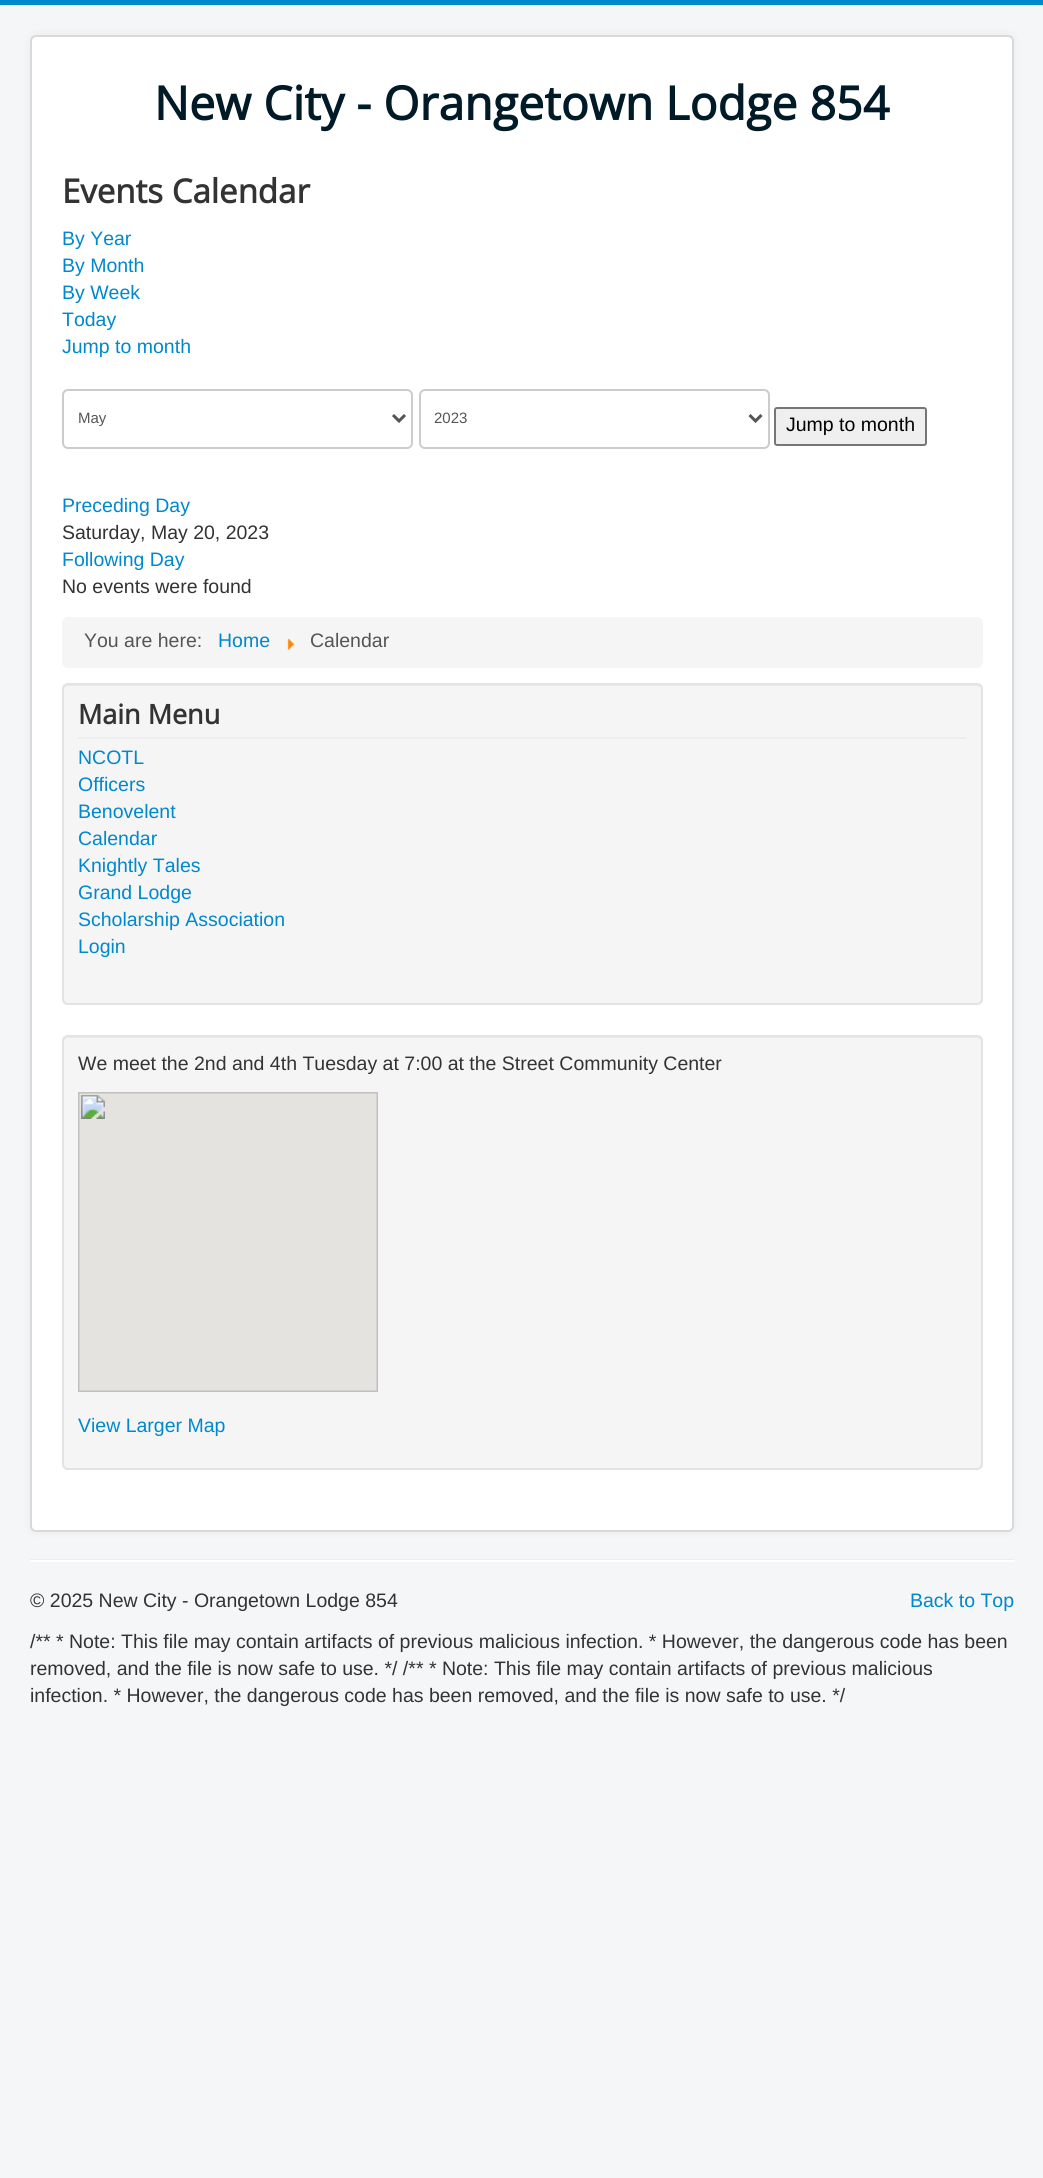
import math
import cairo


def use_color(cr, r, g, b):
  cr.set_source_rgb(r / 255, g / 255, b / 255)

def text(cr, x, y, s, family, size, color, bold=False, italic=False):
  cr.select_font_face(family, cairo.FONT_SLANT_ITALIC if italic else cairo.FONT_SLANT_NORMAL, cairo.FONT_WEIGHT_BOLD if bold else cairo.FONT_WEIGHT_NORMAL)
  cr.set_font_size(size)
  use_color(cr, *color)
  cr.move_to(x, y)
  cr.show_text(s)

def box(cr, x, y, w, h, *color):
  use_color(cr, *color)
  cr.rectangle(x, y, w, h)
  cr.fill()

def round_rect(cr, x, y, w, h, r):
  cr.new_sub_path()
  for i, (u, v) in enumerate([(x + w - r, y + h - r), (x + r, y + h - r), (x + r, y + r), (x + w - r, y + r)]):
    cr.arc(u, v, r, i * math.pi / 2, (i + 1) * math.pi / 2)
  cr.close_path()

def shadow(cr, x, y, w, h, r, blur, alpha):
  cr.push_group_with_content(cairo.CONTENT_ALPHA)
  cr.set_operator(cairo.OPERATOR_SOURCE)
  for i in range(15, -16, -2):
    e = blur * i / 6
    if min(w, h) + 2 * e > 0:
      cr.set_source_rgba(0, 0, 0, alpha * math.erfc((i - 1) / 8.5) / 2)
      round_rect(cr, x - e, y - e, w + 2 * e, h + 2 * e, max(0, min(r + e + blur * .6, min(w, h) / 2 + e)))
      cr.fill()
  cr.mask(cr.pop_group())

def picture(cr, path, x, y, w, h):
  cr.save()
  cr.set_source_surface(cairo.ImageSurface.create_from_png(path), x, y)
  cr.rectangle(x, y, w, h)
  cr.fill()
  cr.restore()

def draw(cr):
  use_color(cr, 244, 246, 247)
  cr.paint()
  box(cr, 0, 0, 1043, 5, 0, 136, 204)
  use_color(cr, 0, 0, 0)
  shadow(cr, 30, 35, 984, 1497, 6, 4.5, 0.05)
  use_color(cr, 255, 255, 255)
  round_rect(cr, 30, 35, 984, 1497, 6)
  cr.fill()
  round_rect(cr, 31, 36, 982, 1495, 5)
  cr.set_source_rgba(0, 0, 0, 0.15)
  cr.stroke()
  round_rect(cr, 63, 390, 349, 58, 5)
  use_color(cr, 204, 204, 204)
  cr.stroke()
  cr.new_path()
  cr.move_to(393, 415)
  cr.line_to(399, 421)
  cr.line_to(405, 415)
  use_color(cr, 85, 85, 85)
  cr.set_line_width(3)
  cr.stroke()
  round_rect(cr, 420, 390, 349, 58, 5)
  use_color(cr, 204, 204, 204)
  cr.set_line_width(2)
  cr.stroke()
  cr.new_path()
  cr.move_to(749.5, 415)
  cr.line_to(755.5, 421)
  cr.line_to(761.5, 415)
  use_color(cr, 85, 85, 85)
  cr.set_line_width(3)
  cr.stroke()
  use_color(cr, 239, 239, 239)
  round_rect(cr, 775, 408, 151, 37, 2)
  cr.fill_preserve()
  use_color(cr, 118, 118, 118)
  cr.set_line_width(2)
  cr.stroke()
  use_color(cr, 245, 245, 245)
  round_rect(cr, 62, 617, 921, 51, 6)
  cr.fill()
  picture(cr, "img_01.png", 287, 638, 8, 12)
  round_rect(cr, 62, 683, 921, 322, 6)
  cr.fill()
  use_color(cr, 233, 233, 233)
  cr.new_path()
  cr.move_to(68, 686)
  cr.line_to(976, 686)
  cr.curve_to(979, 686, 981, 688, 981, 690)
  cr.curve_to(981, 687, 979, 684, 976, 684)
  cr.line_to(68, 684)
  cr.curve_to(65, 684, 63, 687, 63, 690)
  cr.curve_to(63, 688, 65, 686, 68, 686)
  cr.close_path()
  cr.fill()
  round_rect(cr, 63, 684, 919, 320, 5)
  use_color(cr, 227, 227, 227)
  cr.stroke()
  box(cr, 78, 737, 888, 2, 238, 238, 238)
  use_color(cr, 245, 245, 245)
  round_rect(cr, 62, 1035, 921, 435, 6)
  cr.fill()
  use_color(cr, 233, 233, 233)
  cr.new_path()
  cr.move_to(68, 1038)
  cr.line_to(976, 1038)
  cr.curve_to(979, 1038, 981, 1040, 981, 1042)
  cr.curve_to(981, 1039, 979, 1037, 976, 1037)
  cr.line_to(68, 1037)
  cr.curve_to(65, 1037, 63, 1039, 63, 1042)
  cr.curve_to(63, 1040, 65, 1038, 68, 1038)
  cr.close_path()
  cr.fill()
  round_rect(cr, 63, 1036, 919, 433, 5)
  use_color(cr, 227, 227, 227)
  cr.stroke()
  picture(cr, "img_02.png", 78, 1092, 300, 300)
  box(cr, 30, 1559, 984, 1, 238, 238, 238)
  box(cr, 30, 1560, 984, 2, 255, 255, 255)
  text(cr, 154, 120, "New City - Orangetown Lodge 854", "Open Sans", 46.5, (0, 26, 39), bold=True)
  text(cr, 62, 203, "Events Calendar", "Open Sans", 33, (51, 51, 51), bold=True)
  text(cr, 62, 245, "By Year", "Liberation Sans", 19.5, (0, 136, 204))
  text(cr, 62, 272, "By Month", "Liberation Sans", 19.5, (0, 136, 204))
  text(cr, 62, 299, "By Week", "Liberation Sans", 19.5, (0, 136, 204))
  text(cr, 62, 326, "Today", "Liberation Sans", 19.5, (0, 136, 204))
  text(cr, 62, 353, "Jump to month", "Liberation Sans", 19.5, (0, 136, 204))
  text(cr, 78, 423, "May", "Liberation Sans", 15, (85, 85, 85))
  text(cr, 434, 423, "2023", "Liberation Sans", 15, (85, 85, 85))
  text(cr, 786, 431, "Jump to month", "Liberation Sans", 19.5, (0, 0, 0))
  text(cr, 62, 512, "Preceding Day", "Liberation Sans", 19.5, (0, 136, 204))
  text(cr, 62, 539, "Saturday, May 20, 2023", "Liberation Sans", 19.5, (51, 51, 51))
  text(cr, 62, 566, "Following Day", "Liberation Sans", 19.5, (0, 136, 204))
  text(cr, 62, 593, "No events were found", "Liberation Sans", 19.5, (51, 51, 51))
  text(cr, 84, 647, "You are here:", "Liberation Sans", 19.5, (85, 85, 85))
  text(cr, 218, 647, "Home", "Liberation Sans", 19.5, (0, 136, 204))
  text(cr, 310, 647, "Calendar", "Liberation Sans", 19.5, (85, 85, 85))
  text(cr, 78, 724, "Main Menu", "Open Sans", 27, (51, 51, 51), bold=True)
  text(cr, 78, 764, "NCOTL", "Liberation Sans", 19.5, (0, 136, 204))
  text(cr, 78, 791, "Officers", "Liberation Sans", 19.5, (0, 136, 204))
  text(cr, 78, 818, "Benovelent", "Liberation Sans", 19.5, (0, 136, 204))
  text(cr, 78, 845, "Calendar", "Liberation Sans", 19.5, (0, 136, 204))
  text(cr, 78, 872, "Knightly Tales", "Liberation Sans", 19.5, (0, 136, 204))
  text(cr, 78, 899, "Grand Lodge", "Liberation Sans", 19.5, (0, 136, 204))
  text(cr, 78, 926, "Scholarship Association", "Liberation Sans", 19.5, (0, 136, 204))
  text(cr, 78, 953, "Login", "Liberation Sans", 19.5, (0, 136, 204))
  text(cr, 78, 1070, "We meet the 2nd and 4th Tuesday at 7:00 at the Street Community Center", "Liberation Sans", 19.5, (51, 51, 51))
  text(cr, 78, 1432, "View Larger Map", "Liberation Sans", 19.5, (0, 136, 204))
  text(cr, 30, 1607, "© 2025 New City - Orangetown Lodge 854", "Liberation Sans", 19.5, (51, 51, 51))
  text(cr, 910, 1607, "Back to Top", "Liberation Sans", 19.5, (0, 136, 204))
  text(cr, 30, 1648, "/** * Note: This file may contain artifacts of previous malicious infection. * However, the dangerous code has been", "Liberation Sans", 19.5, (51, 51, 51))
  text(cr, 30, 1675, "removed, and the file is now safe to use. */ /** * Note: This file may contain artifacts of previous malicious", "Liberation Sans", 19.5, (51, 51, 51))
  text(cr, 30, 1702, "infection. * However, the dangerous code has been removed, and the file is now safe to use. */", "Liberation Sans", 19.5, (51, 51, 51))


surface = cairo.ImageSurface(cairo.FORMAT_RGB24, 1043, 2178)
cr = cairo.Context(surface)
options = cairo.FontOptions()
options.set_hint_metrics(cairo.HINT_METRICS_OFF)
options.set_hint_style(cairo.HINT_STYLE_NONE)
cr.set_font_options(options)
cr.set_miter_limit(4)
draw(cr)
surface.write_to_png("out.png")
